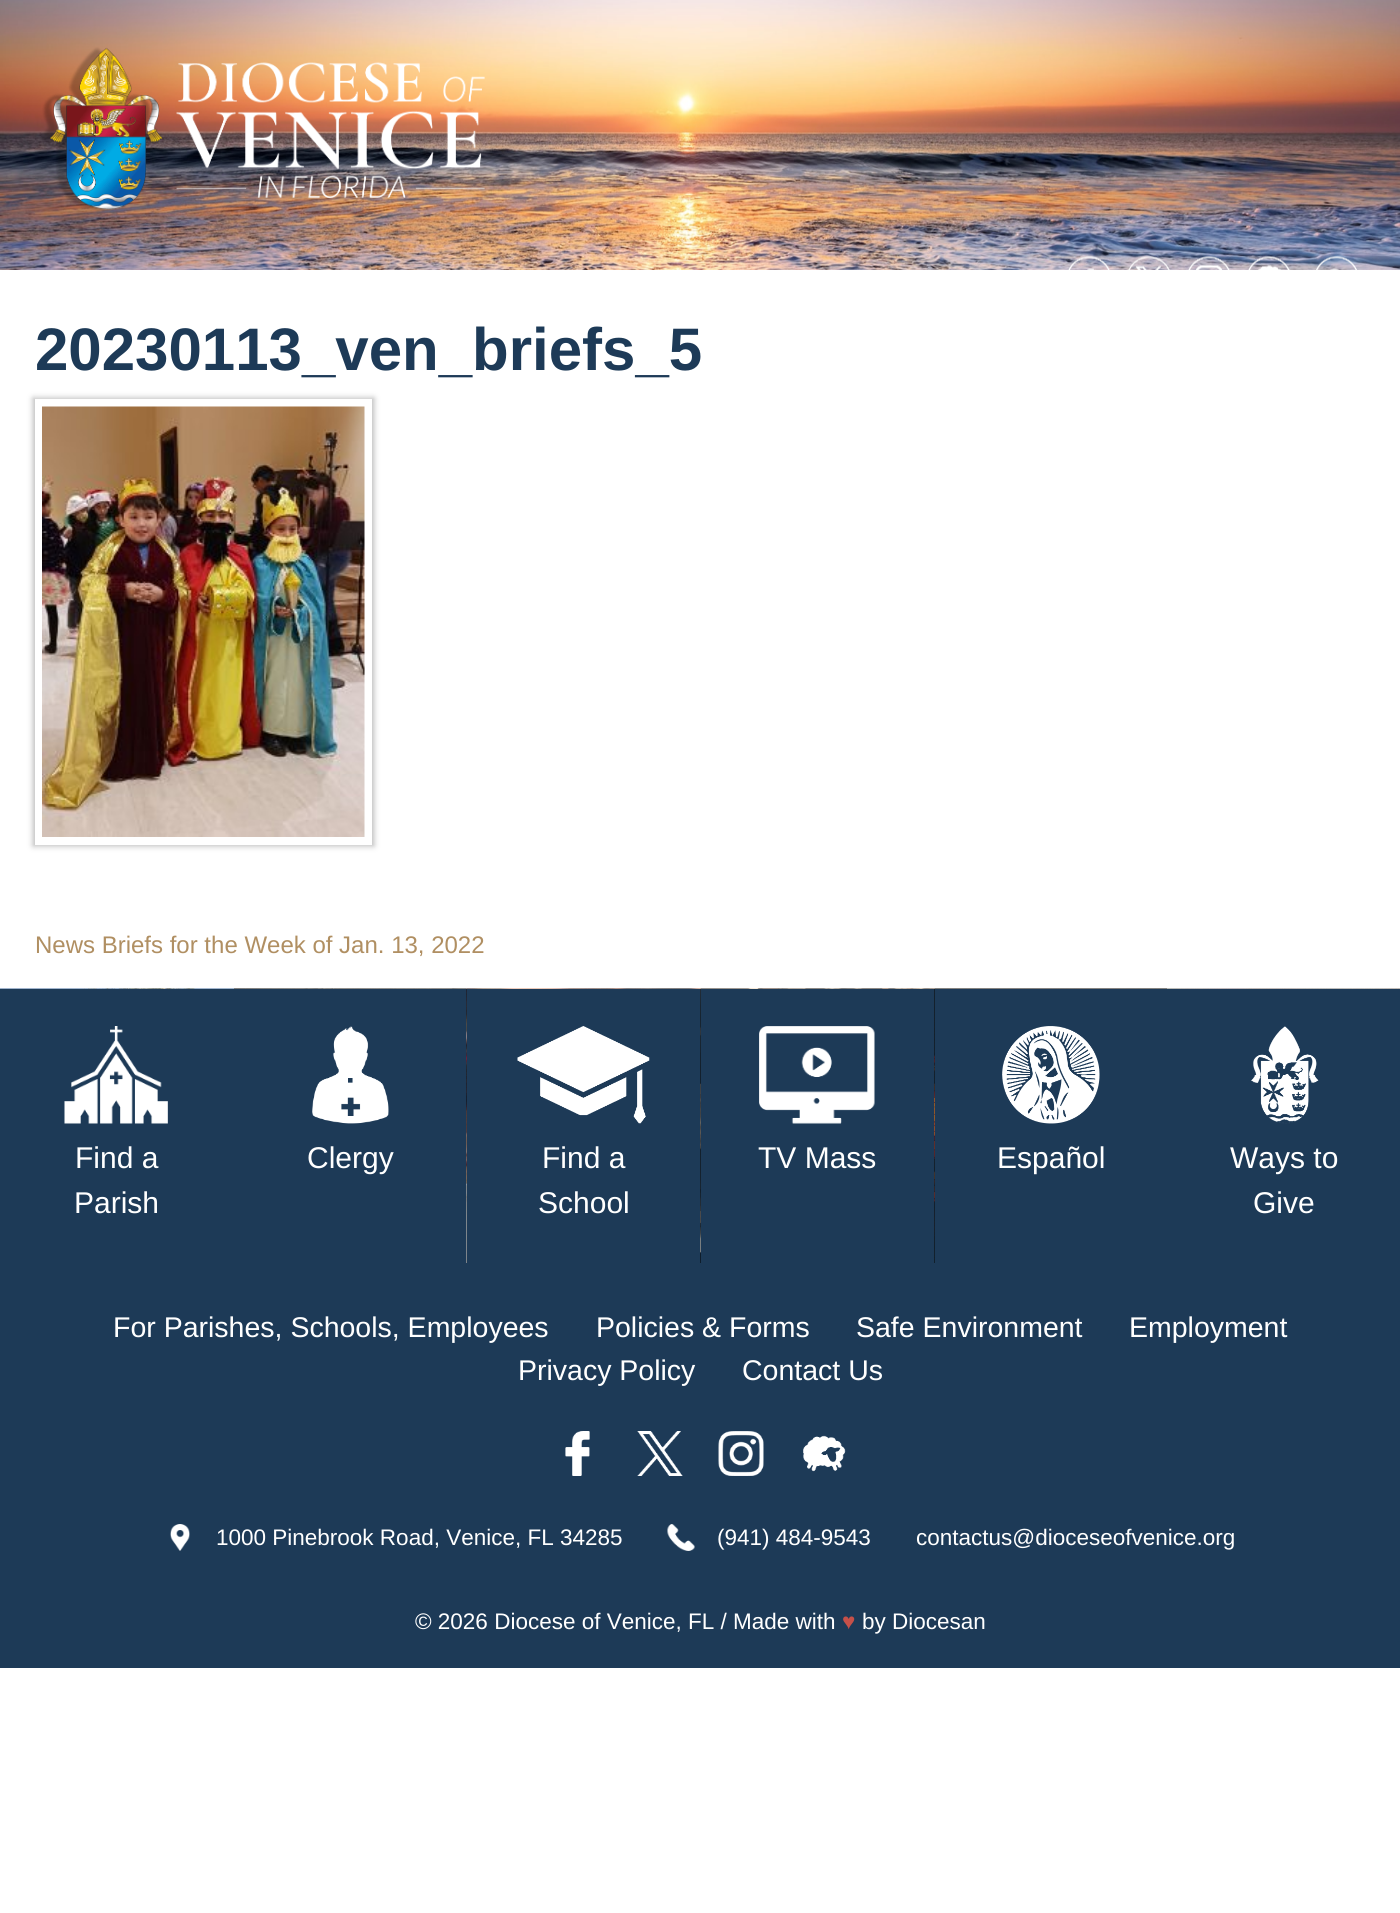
import math
import cairo


def use_color(cr, r, g, b):
  cr.set_source_rgb(r / 255, g / 255, b / 255)

def text(cr, x, y, s, family, size, color, bold=False, italic=False):
  cr.select_font_face(family, cairo.FONT_SLANT_ITALIC if italic else cairo.FONT_SLANT_NORMAL, cairo.FONT_WEIGHT_BOLD if bold else cairo.FONT_WEIGHT_NORMAL)
  cr.set_font_size(size)
  use_color(cr, *color)
  cr.move_to(x, y)
  cr.show_text(s)

def box(cr, x, y, w, h, *color):
  use_color(cr, *color)
  cr.rectangle(x, y, w, h)
  cr.fill()

def round_rect(cr, x, y, w, h, r):
  cr.new_sub_path()
  for i, (u, v) in enumerate([(x + w - r, y + h - r), (x + r, y + h - r), (x + r, y + r), (x + w - r, y + r)]):
    cr.arc(u, v, r, i * math.pi / 2, (i + 1) * math.pi / 2)
  cr.close_path()

def shadow(cr, x, y, w, h, r, blur, alpha):
  cr.push_group_with_content(cairo.CONTENT_ALPHA)
  cr.set_operator(cairo.OPERATOR_SOURCE)
  for i in range(15, -16, -2):
    e = blur * i / 6
    if min(w, h) + 2 * e > 0:
      cr.set_source_rgba(0, 0, 0, alpha * math.erfc((i - 1) / 8.5) / 2)
      round_rect(cr, x - e, y - e, w + 2 * e, h + 2 * e, max(0, min(r + e + blur * .6, min(w, h) / 2 + e)))
      cr.fill()
  cr.mask(cr.pop_group())

def picture(cr, path, x, y, w, h):
  cr.save()
  cr.set_source_surface(cairo.ImageSurface.create_from_png(path), x, y)
  cr.rectangle(x, y, w, h)
  cr.fill()
  cr.restore()

def draw(cr):
  use_color(cr, 255, 255, 255)
  cr.paint()
  picture(cr, "img_01.png", 0, 0, 1400, 270)
  picture(cr, "img_02.png", 41, 47, 444, 164)
  picture(cr, "img_03.png", 1068, 256, 42, 14)
  picture(cr, "img_04.png", 1128, 256, 42, 14)
  picture(cr, "img_05.png", 1188, 256, 42, 14)
  picture(cr, "img_06.png", 1248, 256, 42, 14)
  picture(cr, "img_07.png", 1316, 256, 42, 14)
  cr.save()
  cr.set_fill_rule(cairo.FILL_RULE_EVEN_ODD)
  cr.new_path()
  cr.move_to(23, 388)
  cr.line_to(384, 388)
  cr.line_to(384, 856)
  cr.line_to(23, 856)
  cr.close_path()
  cr.move_to(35, 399)
  cr.line_to(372, 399)
  cr.line_to(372, 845)
  cr.line_to(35, 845)
  cr.close_path()
  cr.clip()
  use_color(cr, 187, 187, 187)
  shadow(cr, 33, 398, 341, 448, 0, 3, 1)
  cr.restore()
  picture(cr, "img_08.png", 42, 406, 323, 431)
  picture(cr, "img_09.png", 0, 988, 234, 1)
  box(cr, 0, 989, 467, 274, 29, 58, 87)
  picture(cr, "img_10.png", 64, 1026, 104, 98)
  picture(cr, "img_11.png", 234, 988, 233, 1)
  picture(cr, "img_12.png", 312, 1026, 77, 98)
  picture(cr, "img_13.png", 466, 988, 235, 275)
  box(cr, 467, 989, 234, 274, 29, 58, 87)
  picture(cr, "img_14.png", 517, 1026, 133, 98)
  picture(cr, "img_15.png", 700, 988, 235, 275)
  box(cr, 701, 989, 234, 274, 29, 58, 87)
  picture(cr, "img_16.png", 759, 1026, 116, 98)
  picture(cr, "img_17.png", 934, 988, 233, 275)
  box(cr, 935, 989, 465, 274, 29, 58, 87)
  picture(cr, "img_18.png", 1002, 1026, 98, 98)
  picture(cr, "img_19.png", 1167, 988, 233, 1)
  picture(cr, "img_20.png", 1251, 1026, 68, 98)
  box(cr, 0, 1263, 1400, 405, 29, 58, 87)
  picture(cr, "img_21.png", 565, 1431, 25, 45)
  picture(cr, "img_22.png", 637, 1431, 46, 45)
  picture(cr, "img_23.png", 718, 1431, 46, 45)
  picture(cr, "img_24.png", 803, 1435, 43, 37)
  picture(cr, "img_25.png", 170, 1524, 20, 27)
  picture(cr, "img_26.png", 667, 1524, 28, 27)
  text(cr, 35, 370, "20230113_ven_briefs_5", "Liberation Sans", 60, (29, 58, 87), bold=True)
  text(cr, 35, 953, "News Briefs for the Week of Jan. 13, 2022", "Liberation Sans", 24, (176, 143, 98))
  text(cr, 75, 1168, "Find a", "Liberation Sans", 30, (255, 255, 255))
  text(cr, 74, 1213, "Parish", "Liberation Sans", 30, (255, 255, 255))
  text(cr, 307, 1168, "Clergy", "Liberation Sans", 30, (255, 255, 255))
  text(cr, 542, 1168, "Find a", "Liberation Sans", 30, (255, 255, 255))
  text(cr, 538, 1213, "School", "Liberation Sans", 30, (255, 255, 255))
  text(cr, 758, 1168, "TV Mass", "Liberation Sans", 30, (255, 255, 255))
  text(cr, 997, 1168, "Español", "Liberation Sans", 30, (255, 255, 255))
  text(cr, 1230, 1168, "Ways to", "Liberation Sans", 30, (255, 255, 255))
  text(cr, 1253, 1213, "Give", "Liberation Sans", 30, (255, 255, 255))
  text(cr, 113, 1337, "For Parishes, Schools, Employees", "Liberation Sans", 28.5, (255, 255, 255))
  text(cr, 596, 1337, "Policies & Forms", "Liberation Sans", 28.5, (255, 255, 255))
  text(cr, 856, 1337, "Safe Environment", "Liberation Sans", 28.5, (255, 255, 255))
  text(cr, 1129, 1337, "Employment", "Liberation Sans", 28.5, (255, 255, 255))
  text(cr, 518, 1380, "Privacy Policy", "Liberation Sans", 28.5, (255, 255, 255))
  text(cr, 742, 1380, "Contact Us", "Liberation Sans", 28.5, (255, 255, 255))
  text(cr, 216, 1545, "1000 Pinebrook Road, Venice, FL 34285", "Liberation Sans", 22.5, (255, 255, 255))
  text(cr, 717, 1545, "(941) 484-9543", "Liberation Sans", 22.5, (255, 255, 255))
  text(cr, 916, 1545, "contactus@dioceseofvenice.org", "Liberation Sans", 22.5, (255, 255, 255))
  text(cr, 415, 1629, "© 2026 Diocese of Venice, FL / Made with", "Liberation Sans", 22.5, (255, 255, 255))
  text(cr, 842, 1629, "♥", "Liberation Sans", 22.5, (198, 80, 73))
  text(cr, 862, 1629, "by Diocesan", "Liberation Sans", 22.5, (255, 255, 255))


surface = cairo.ImageSurface(cairo.FORMAT_RGB24, 1400, 1913)
cr = cairo.Context(surface)
options = cairo.FontOptions()
options.set_hint_metrics(cairo.HINT_METRICS_OFF)
options.set_hint_style(cairo.HINT_STYLE_NONE)
cr.set_font_options(options)
cr.set_miter_limit(4)
draw(cr)
surface.write_to_png("out.png")
